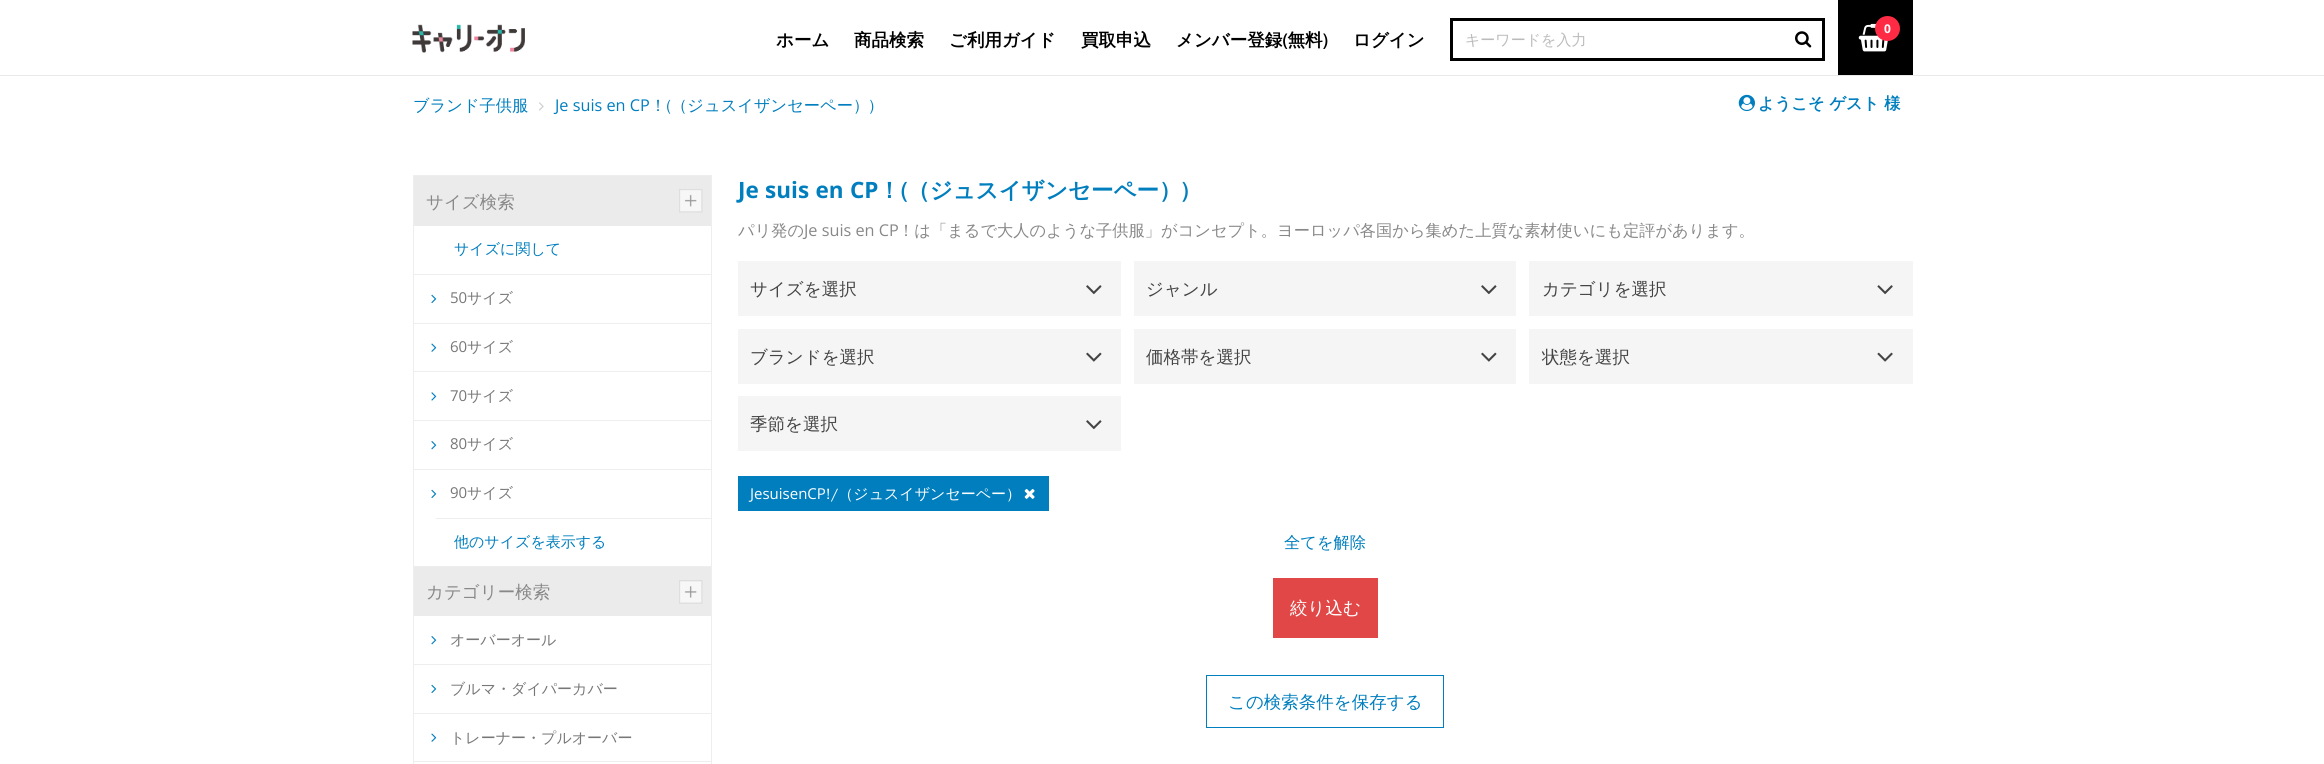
import math
import cairo


def use_color(cr, r, g, b):
  cr.set_source_rgb(r / 255, g / 255, b / 255)

def text(cr, x, y, s, family, size, color, bold=False, italic=False):
  cr.select_font_face(family, cairo.FONT_SLANT_ITALIC if italic else cairo.FONT_SLANT_NORMAL, cairo.FONT_WEIGHT_BOLD if bold else cairo.FONT_WEIGHT_NORMAL)
  cr.set_font_size(size)
  use_color(cr, *color)
  cr.move_to(x, y)
  cr.show_text(s)

def spaced_text(cr, x, y, s, letter, word):
  cr.move_to(x, y)
  for ch in s:
    cr.show_text(ch)
    cr.rel_move_to(letter + word * (ch == ' '), 0)

def box(cr, x, y, w, h, *color):
  use_color(cr, *color)
  cr.rectangle(x, y, w, h)
  cr.fill()

def picture(cr, path, x, y, w, h):
  cr.save()
  cr.set_source_surface(cairo.ImageSurface.create_from_png(path), x, y)
  cr.rectangle(x, y, w, h)
  cr.fill()
  cr.restore()

def draw(cr):
  use_color(cr, 255, 255, 255)
  cr.paint()
  box(cr, 0, 75, 2324, 1, 233, 233, 233)
  picture(cr, "img_01.png", 412, 24, 113, 29)
  box(cr, 1838, 0, 75, 75, 0, 0, 0)
  picture(cr, "img_02.png", 1858, 23, 30, 29)
  use_color(cr, 255, 43, 68)
  cr.arc(1887.5, 28.5, 12.5, 0, 2 * math.pi)
  cr.fill()
  cr.rectangle(1451.5, 19.5, 372, 40)
  use_color(cr, 0, 0, 0)
  cr.set_line_width(3)
  cr.stroke()
  picture(cr, "img_03.png", 1795, 31, 17, 17)
  picture(cr, "img_04.png", 1738, 94, 17, 18)
  picture(cr, "img_05.png", 539, 102, 5, 9)
  box(cr, 711, 175, 1, 589, 238, 238, 238)
  box(cr, 413, 175, 1, 589, 238, 238, 238)
  box(cr, 414, 176, 297, 50, 235, 235, 235)
  picture(cr, "img_06.png", 679, 189, 24, 24)
  box(cr, 414, 175, 297, 1, 238, 238, 238)
  box(cr, 414, 274, 297, 1, 238, 238, 238)
  picture(cr, "img_07.png", 431, 294, 6, 9)
  box(cr, 414, 323, 297, 1, 238, 238, 238)
  picture(cr, "img_08.png", 431, 343, 6, 9)
  box(cr, 414, 371, 297, 1, 238, 238, 238)
  picture(cr, "img_09.png", 431, 392, 6, 9)
  box(cr, 414, 420, 297, 1, 238, 238, 238)
  picture(cr, "img_10.png", 431, 441, 6, 9)
  box(cr, 414, 469, 297, 1, 238, 238, 238)
  picture(cr, "img_07.png", 431, 489, 6, 9)
  box(cr, 436, 518, 275, 1, 238, 238, 238)
  box(cr, 414, 567, 297, 49, 235, 235, 235)
  picture(cr, "img_11.png", 679, 580, 24, 24)
  box(cr, 414, 566, 297, 1, 238, 238, 238)
  picture(cr, "img_10.png", 431, 636, 6, 9)
  box(cr, 414, 664, 297, 1, 238, 238, 238)
  picture(cr, "img_07.png", 431, 684, 6, 9)
  box(cr, 414, 713, 297, 1, 238, 238, 238)
  picture(cr, "img_08.png", 431, 733, 6, 9)
  box(cr, 414, 761, 297, 1, 238, 238, 238)
  box(cr, 738, 261, 383, 55, 245, 245, 245)
  picture(cr, "img_12.png", 1086, 285, 16, 10)
  box(cr, 1134, 261, 382, 55, 245, 245, 245)
  picture(cr, "img_12.png", 1481, 285, 16, 10)
  box(cr, 1529, 261, 384, 55, 245, 245, 245)
  picture(cr, "img_13.png", 1877, 285, 16, 10)
  box(cr, 738, 329, 383, 55, 245, 245, 245)
  picture(cr, "img_14.png", 1086, 352, 16, 10)
  box(cr, 1134, 329, 382, 55, 245, 245, 245)
  picture(cr, "img_14.png", 1481, 352, 16, 10)
  box(cr, 1529, 329, 384, 55, 245, 245, 245)
  picture(cr, "img_15.png", 1877, 352, 16, 10)
  box(cr, 738, 396, 383, 55, 245, 245, 245)
  picture(cr, "img_12.png", 1086, 420, 16, 10)
  box(cr, 738, 476, 311, 35, 0, 126, 190)
  picture(cr, "img_16.png", 1024, 489, 11, 10)
  box(cr, 1273, 578, 105, 60, 226, 71, 71)
  cr.rectangle(1206.5, 675.5, 237, 52)
  use_color(cr, 0, 126, 190)
  cr.set_line_width(1)
  cr.stroke()
  text(cr, 1884, 33, "0", "Open Sans", 12, (255, 255, 255), bold=True)
  text(cr, 776, 46, "ホーム", "WenQuanYi Zen Hei", 17.5, (0, 0, 0), bold=True)
  text(cr, 854, 46, "商品検索", "WenQuanYi Zen Hei", 17.5, (0, 0, 0), bold=True)
  text(cr, 949, 46, "ご利用ガイド", "WenQuanYi Zen Hei", 17.5, (0, 0, 0), bold=True)
  text(cr, 1081, 46, "買取申込", "WenQuanYi Zen Hei", 17.5, (0, 0, 0), bold=True)
  text(cr, 1176, 46, "メンバー登録(無料)", "WenQuanYi Zen Hei", 17.5, (0, 0, 0), bold=True)
  text(cr, 1353, 46, "ログイン", "WenQuanYi Zen Hei", 17.5, (0, 0, 0), bold=True)
  text(cr, 1465, 45, "キーワードを入力", "WenQuanYi Zen Hei Medium", 15, (187, 187, 187))
  text(cr, 1758, 109, "ようこそ ゲスト 様", "WenQuanYi Zen Hei", 16.25, (0, 126, 190), bold=True)
  text(cr, 413, 111, "ブランド子供服", "WenQuanYi Zen Hei Medium", 16.25, (0, 126, 190))
  text(cr, 555, 111, "Je suis en CP", "Open Sans", 16.25, (0, 126, 190))
  text(cr, 650, 111, "！(（ジュスイザンセーペー）)", "WenQuanYi Zen Hei Medium", 16.25, (0, 126, 190))
  text(cr, 426, 208, "サイズ検索", "WenQuanYi Zen Hei Medium", 17.5, (136, 136, 136))
  text(cr, 454, 254, "サイズに関して", "WenQuanYi Zen Hei Medium", 15, (0, 126, 190))
  text(cr, 450, 303, "50", "Open Sans", 15, (119, 119, 119))
  text(cr, 467, 303, "サイズ", "WenQuanYi Zen Hei Medium", 15, (119, 119, 119))
  text(cr, 450, 352, "60", "Open Sans", 15, (119, 119, 119))
  text(cr, 467, 352, "サイズ", "WenQuanYi Zen Hei Medium", 15, (119, 119, 119))
  text(cr, 450, 401, "70", "Open Sans", 15, (119, 119, 119))
  text(cr, 467, 401, "サイズ", "WenQuanYi Zen Hei Medium", 15, (119, 119, 119))
  text(cr, 450, 449, "80", "Open Sans", 15, (119, 119, 119))
  text(cr, 467, 449, "サイズ", "WenQuanYi Zen Hei Medium", 15, (119, 119, 119))
  text(cr, 450, 498, "90", "Open Sans", 15, (119, 119, 119))
  text(cr, 467, 498, "サイズ", "WenQuanYi Zen Hei Medium", 15, (119, 119, 119))
  text(cr, 454, 547, "他のサイズを表示する", "WenQuanYi Zen Hei Medium", 15, (0, 126, 190))
  text(cr, 426, 598, "カテゴリー検索", "WenQuanYi Zen Hei Medium", 17.5, (136, 136, 136))
  text(cr, 450, 645, "オーバーオール", "WenQuanYi Zen Hei Medium", 15, (119, 119, 119))
  text(cr, 450, 694, "ブルマ・ダイパーカバー", "WenQuanYi Zen Hei Medium", 15, (119, 119, 119))
  text(cr, 450, 743, "トレーナー・プルオーバー", "WenQuanYi Zen Hei Medium", 15, (119, 119, 119))
  cr.select_font_face("Open Sans", cairo.FONT_SLANT_NORMAL, cairo.FONT_WEIGHT_BOLD)
  cr.set_font_size(22.5)
  use_color(cr, 0, 126, 190)
  spaced_text(cr, 738, 198, "Je suis en CP", 0, 0.5)
  text(cr, 878, 198, "！(（ジュスイザンセーペー）)", "WenQuanYi Zen Hei", 22.5, (0, 126, 190), bold=True)
  text(cr, 738, 236, "パリ発の", "WenQuanYi Zen Hei Medium", 16.25, (136, 136, 136))
  text(cr, 804, 236, "Je suis en CP", "Open Sans", 16.25, (136, 136, 136))
  text(cr, 898, 236, "！は「まるで大人のような子供服」がコンセプト。ヨーロッパ各国から集めた上質な素材使いにも定評があります。", "WenQuanYi Zen Hei Medium", 16.25, (136, 136, 136))
  text(cr, 750, 295, "サイズを選択", "WenQuanYi Zen Hei Medium", 17.5, (68, 68, 68))
  text(cr, 1146, 295, "ジャンル", "WenQuanYi Zen Hei Medium", 17.5, (68, 68, 68))
  text(cr, 1542, 295, "カテゴリを選択", "WenQuanYi Zen Hei Medium", 17.5, (68, 68, 68))
  text(cr, 750, 363, "ブランドを選択", "WenQuanYi Zen Hei Medium", 17.5, (68, 68, 68))
  text(cr, 1146, 363, "価格帯を選択", "WenQuanYi Zen Hei Medium", 17.5, (68, 68, 68))
  text(cr, 1542, 363, "状態を選択", "WenQuanYi Zen Hei Medium", 17.5, (68, 68, 68))
  text(cr, 750, 430, "季節を選択", "WenQuanYi Zen Hei Medium", 17.5, (68, 68, 68))
  text(cr, 750, 499, "JesuisenCP", "Open Sans", 15, (255, 255, 255))
  text(cr, 826, 499, "!/（ジュスイザンセーペー）", "WenQuanYi Zen Hei Medium", 15, (255, 255, 255))
  text(cr, 1284, 548, "全てを解除", "WenQuanYi Zen Hei Medium", 16.25, (0, 126, 190))
  text(cr, 1290, 614, "絞り込む", "WenQuanYi Zen Hei Medium", 17.5, (255, 255, 255))
  text(cr, 1228, 708, "この検索条件を保存する", "WenQuanYi Zen Hei Medium", 17.5, (0, 126, 190))


surface = cairo.ImageSurface(cairo.FORMAT_RGB24, 2324, 764)
cr = cairo.Context(surface)
options = cairo.FontOptions()
options.set_hint_metrics(cairo.HINT_METRICS_OFF)
options.set_hint_style(cairo.HINT_STYLE_NONE)
cr.set_font_options(options)
cr.set_miter_limit(4)
draw(cr)
surface.write_to_png("out.png")
